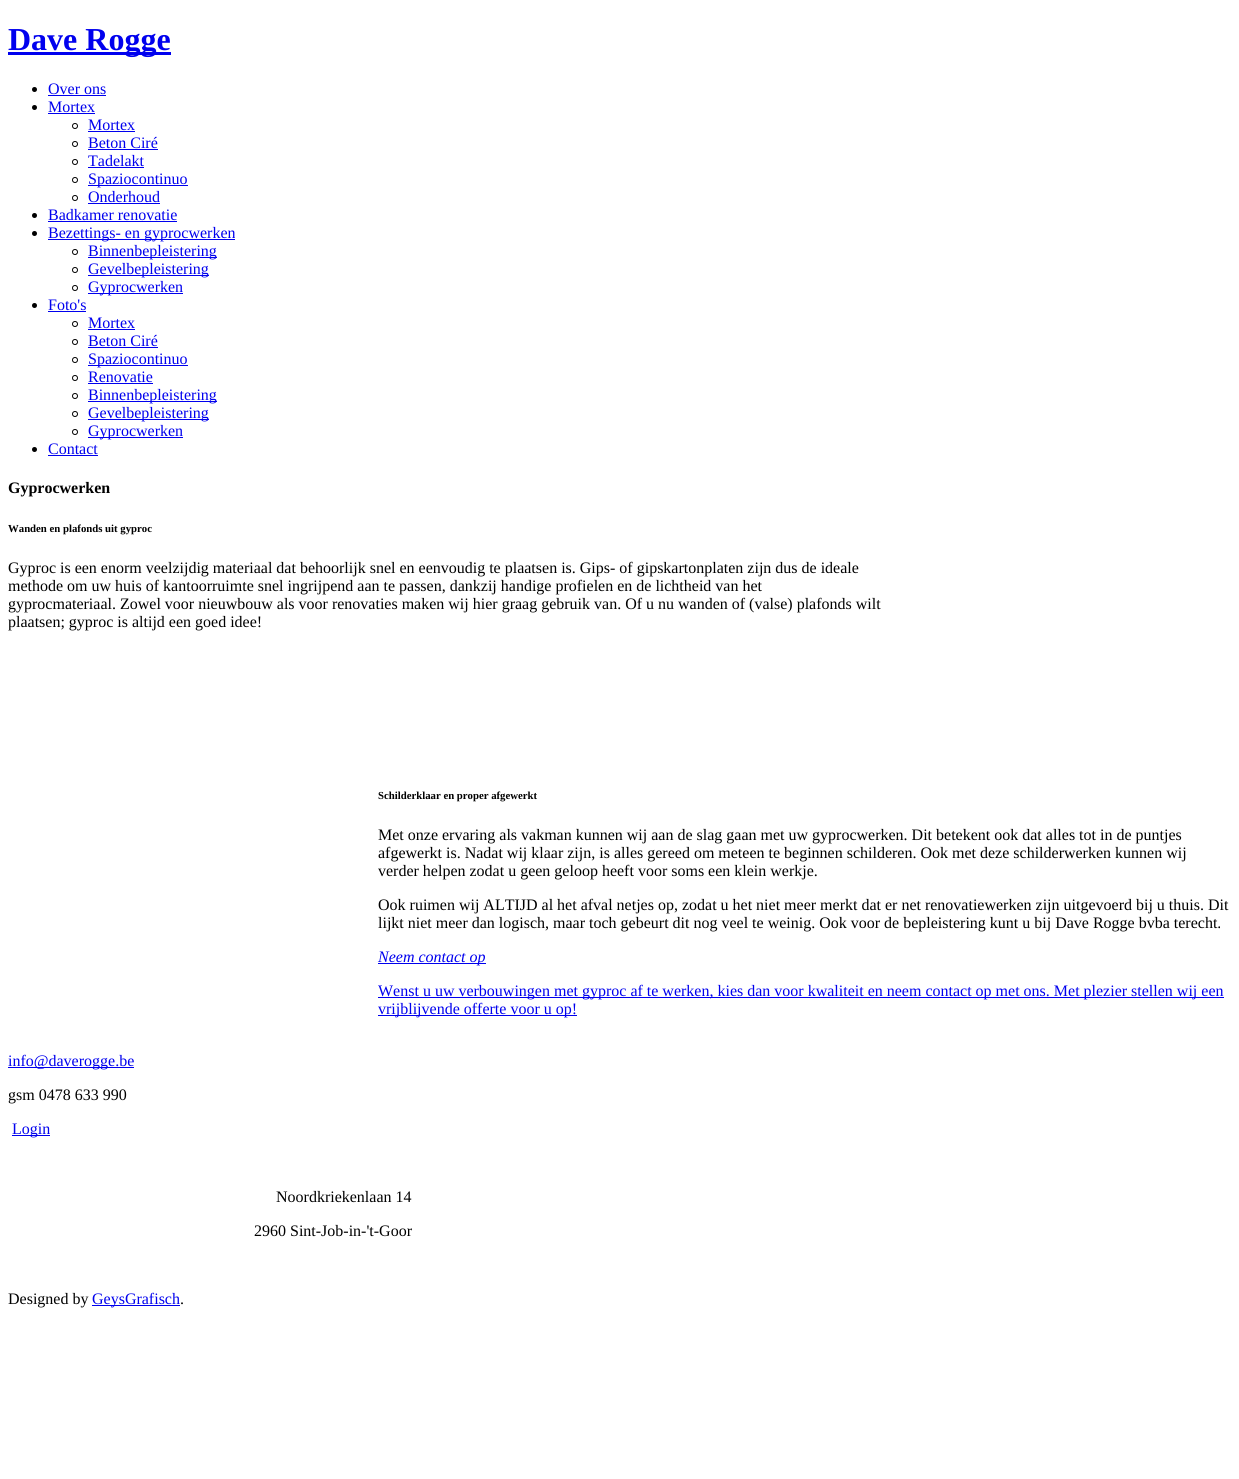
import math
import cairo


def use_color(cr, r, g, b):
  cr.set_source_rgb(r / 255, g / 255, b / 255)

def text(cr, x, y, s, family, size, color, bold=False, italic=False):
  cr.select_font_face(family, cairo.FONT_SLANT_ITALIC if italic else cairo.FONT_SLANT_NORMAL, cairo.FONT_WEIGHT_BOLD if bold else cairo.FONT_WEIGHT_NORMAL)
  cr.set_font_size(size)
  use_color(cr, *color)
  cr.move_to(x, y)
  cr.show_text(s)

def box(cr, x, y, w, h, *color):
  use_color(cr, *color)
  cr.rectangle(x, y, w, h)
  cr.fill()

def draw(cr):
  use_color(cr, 255, 255, 255)
  cr.paint()
  box(cr, 8, 52, 163, 3, 0, 0, 238)
  use_color(cr, 0, 0, 0)
  cr.arc(34.5, 89.5, 2.5, 0, 2 * math.pi)
  cr.fill()
  box(cr, 48, 95, 58, 1, 0, 0, 238)
  use_color(cr, 0, 0, 0)
  cr.arc(34.5, 107.5, 2.5, 0, 2 * math.pi)
  cr.fill()
  box(cr, 48, 113, 47, 1, 0, 0, 238)
  cr.arc(75, 126, 2.5, 0, 2 * math.pi)
  use_color(cr, 0, 0, 0)
  cr.set_line_width(1)
  cr.stroke()
  box(cr, 88, 131, 47, 1, 0, 0, 238)
  cr.arc(75, 144, 2.5, 0, 2 * math.pi)
  use_color(cr, 0, 0, 0)
  cr.stroke()
  box(cr, 88, 149, 70, 1, 0, 0, 238)
  cr.arc(75, 162, 2.5, 0, 2 * math.pi)
  use_color(cr, 0, 0, 0)
  cr.stroke()
  box(cr, 88, 167, 56, 1, 0, 0, 238)
  cr.arc(75, 180, 2.5, 0, 2 * math.pi)
  use_color(cr, 0, 0, 0)
  cr.stroke()
  box(cr, 88, 185, 100, 1, 0, 0, 238)
  cr.arc(75, 198, 2.5, 0, 2 * math.pi)
  use_color(cr, 0, 0, 0)
  cr.stroke()
  box(cr, 88, 203, 72, 1, 0, 0, 238)
  use_color(cr, 0, 0, 0)
  cr.arc(34.5, 215.5, 2.5, 0, 2 * math.pi)
  cr.fill()
  box(cr, 48, 221, 129, 1, 0, 0, 238)
  use_color(cr, 0, 0, 0)
  cr.arc(34.5, 233.5, 2.5, 0, 2 * math.pi)
  cr.fill()
  box(cr, 48, 239, 187, 1, 0, 0, 238)
  cr.arc(75, 252, 2.5, 0, 2 * math.pi)
  use_color(cr, 0, 0, 0)
  cr.stroke()
  box(cr, 88, 257, 129, 1, 0, 0, 238)
  cr.arc(75, 270, 2.5, 0, 2 * math.pi)
  use_color(cr, 0, 0, 0)
  cr.stroke()
  box(cr, 88, 275, 121, 1, 0, 0, 238)
  cr.arc(75, 288, 2.5, 0, 2 * math.pi)
  use_color(cr, 0, 0, 0)
  cr.stroke()
  box(cr, 88, 293, 95, 1, 0, 0, 238)
  use_color(cr, 0, 0, 0)
  cr.arc(34.5, 305.5, 2.5, 0, 2 * math.pi)
  cr.fill()
  box(cr, 48, 311, 38, 1, 0, 0, 238)
  cr.arc(75, 324, 2.5, 0, 2 * math.pi)
  use_color(cr, 0, 0, 0)
  cr.stroke()
  box(cr, 88, 329, 47, 1, 0, 0, 238)
  cr.arc(75, 342, 2.5, 0, 2 * math.pi)
  use_color(cr, 0, 0, 0)
  cr.stroke()
  box(cr, 88, 347, 70, 1, 0, 0, 238)
  cr.arc(75, 360, 2.5, 0, 2 * math.pi)
  use_color(cr, 0, 0, 0)
  cr.stroke()
  box(cr, 88, 365, 100, 1, 0, 0, 238)
  cr.arc(75, 378, 2.5, 0, 2 * math.pi)
  use_color(cr, 0, 0, 0)
  cr.stroke()
  box(cr, 88, 383, 65, 1, 0, 0, 238)
  cr.arc(75, 396, 2.5, 0, 2 * math.pi)
  use_color(cr, 0, 0, 0)
  cr.stroke()
  box(cr, 88, 401, 129, 1, 0, 0, 238)
  cr.arc(75, 414, 2.5, 0, 2 * math.pi)
  use_color(cr, 0, 0, 0)
  cr.stroke()
  box(cr, 88, 419, 121, 1, 0, 0, 238)
  cr.arc(75, 432, 2.5, 0, 2 * math.pi)
  use_color(cr, 0, 0, 0)
  cr.stroke()
  box(cr, 88, 437, 95, 1, 0, 0, 238)
  use_color(cr, 0, 0, 0)
  cr.arc(34.5, 449.5, 2.5, 0, 2 * math.pi)
  cr.fill()
  box(cr, 48, 455, 50, 1, 0, 0, 238)
  box(cr, 378, 963, 108, 1, 0, 0, 238)
  box(cr, 378, 997, 846, 1, 0, 0, 238)
  box(cr, 378, 1015, 199, 1, 0, 0, 238)
  box(cr, 8, 1067, 126, 1, 0, 0, 238)
  box(cr, 12, 1135, 38, 1, 0, 0, 238)
  box(cr, 92, 1305, 88, 1, 0, 0, 238)
  text(cr, 8, 50, "Dave Rogge", "Liberation Serif", 32, (0, 0, 238), bold=True)
  text(cr, 48, 94, "Over ons", "Liberation Serif", 16, (0, 0, 238))
  text(cr, 48, 112, "Mortex", "Liberation Serif", 16, (0, 0, 238))
  text(cr, 88, 130, "Mortex", "Liberation Serif", 16, (0, 0, 238))
  text(cr, 88, 148, "Beton Ciré", "Liberation Serif", 16, (0, 0, 238))
  text(cr, 88, 166, "Tadelakt", "Liberation Serif", 16, (0, 0, 238))
  text(cr, 88, 184, "Spaziocontinuo", "Liberation Serif", 16, (0, 0, 238))
  text(cr, 88, 202, "Onderhoud", "Liberation Serif", 16, (0, 0, 238))
  text(cr, 48, 220, "Badkamer renovatie", "Liberation Serif", 16, (0, 0, 238))
  text(cr, 48, 238, "Bezettings- en gyprocwerken", "Liberation Serif", 16, (0, 0, 238))
  text(cr, 88, 256, "Binnenbepleistering", "Liberation Serif", 16, (0, 0, 238))
  text(cr, 88, 274, "Gevelbepleistering", "Liberation Serif", 16, (0, 0, 238))
  text(cr, 88, 292, "Gyprocwerken", "Liberation Serif", 16, (0, 0, 238))
  text(cr, 48, 310, "Foto's", "Liberation Serif", 16, (0, 0, 238))
  text(cr, 88, 328, "Mortex", "Liberation Serif", 16, (0, 0, 238))
  text(cr, 88, 346, "Beton Ciré", "Liberation Serif", 16, (0, 0, 238))
  text(cr, 88, 364, "Spaziocontinuo", "Liberation Serif", 16, (0, 0, 238))
  text(cr, 88, 382, "Renovatie", "Liberation Serif", 16, (0, 0, 238))
  text(cr, 88, 400, "Binnenbepleistering", "Liberation Serif", 16, (0, 0, 238))
  text(cr, 88, 418, "Gevelbepleistering", "Liberation Serif", 16, (0, 0, 238))
  text(cr, 88, 436, "Gyprocwerken", "Liberation Serif", 16, (0, 0, 238))
  text(cr, 48, 454, "Contact", "Liberation Serif", 16, (0, 0, 238))
  text(cr, 8, 493, "Gyprocwerken", "Liberation Serif", 16, (0, 0, 0), bold=True)
  text(cr, 8, 532, "Wanden en plafonds uit gyproc", "Liberation Serif", 10.75, (0, 0, 0), bold=True)
  text(cr, 8, 573, "Gyproc is een enorm veelzijdig materiaal dat behoorlijk snel en eenvoudig te plaatsen is. Gips- of gipskartonplaten zijn dus de ideale", "Liberation Serif", 16, (0, 0, 0))
  text(cr, 8, 591, "methode om uw huis of kantoorruimte snel ingrijpend aan te passen, dankzij handige profielen en de lichtheid van het", "Liberation Serif", 16, (0, 0, 0))
  text(cr, 8, 609, "gyprocmateriaal. Zowel voor nieuwbouw als voor renovaties maken wij hier graag gebruik van. Of u nu wanden of (valse) plafonds wilt", "Liberation Serif", 16, (0, 0, 0))
  text(cr, 8, 627, "plaatsen; gyproc is altijd een goed idee!", "Liberation Serif", 16, (0, 0, 0))
  text(cr, 378, 799, "Schilderklaar en proper afgewerkt", "Liberation Serif", 10.75, (0, 0, 0), bold=True)
  text(cr, 378, 840, "Met onze ervaring als vakman kunnen wij aan de slag gaan met uw gyprocwerken. Dit betekent ook dat alles tot in de puntjes", "Liberation Serif", 16, (0, 0, 0))
  text(cr, 378, 858, "afgewerkt is. Nadat wij klaar zijn, is alles gereed om meteen te beginnen schilderen. Ook met deze schilderwerken kunnen wij", "Liberation Serif", 16, (0, 0, 0))
  text(cr, 378, 876, "verder helpen zodat u geen geloop heeft voor soms een klein werkje.", "Liberation Serif", 16, (0, 0, 0))
  text(cr, 378, 910, "Ook ruimen wij ALTIJD al het afval netjes op, zodat u het niet meer merkt dat er net renovatiewerken zijn uitgevoerd bij u thuis. Dit", "Liberation Serif", 16, (0, 0, 0))
  text(cr, 378, 928, "lijkt niet meer dan logisch, maar toch gebeurt dit nog veel te weinig. Ook voor de bepleistering kunt u bij Dave Rogge bvba terecht.", "Liberation Serif", 16, (0, 0, 0))
  text(cr, 378, 962, "Neem contact op", "Liberation Serif", 16, (0, 0, 238), italic=True)
  text(cr, 378, 996, "Wenst u uw verbouwingen met gyproc af te werken, kies dan voor kwaliteit en neem contact op met ons. Met plezier stellen wij een", "Liberation Serif", 16, (0, 0, 238))
  text(cr, 378, 1014, "vrijblijvende offerte voor u op!", "Liberation Serif", 16, (0, 0, 238))
  text(cr, 8, 1066, "info@daverogge.be", "Liberation Serif", 16, (0, 0, 238))
  text(cr, 8, 1100, "gsm 0478 633 990", "Liberation Serif", 16, (0, 0, 0))
  text(cr, 12, 1134, "Login", "Liberation Serif", 16, (0, 0, 238))
  text(cr, 276, 1202, "Noordkriekenlaan 14", "Liberation Serif", 16, (0, 0, 0))
  text(cr, 254, 1236, "2960 Sint-Job-in-'t-Goor", "Liberation Serif", 16, (0, 0, 0))
  text(cr, 8, 1304, "Designed by", "Liberation Serif", 16, (0, 0, 0))
  text(cr, 92, 1304, "GeysGrafisch", "Liberation Serif", 16, (0, 0, 238))
  text(cr, 180, 1304, ".", "Liberation Serif", 16, (0, 0, 0))


surface = cairo.ImageSurface(cairo.FORMAT_RGB24, 1239, 1479)
cr = cairo.Context(surface)
options = cairo.FontOptions()
options.set_hint_metrics(cairo.HINT_METRICS_OFF)
options.set_hint_style(cairo.HINT_STYLE_NONE)
cr.set_font_options(options)
cr.set_miter_limit(4)
draw(cr)
surface.write_to_png("out.png")
